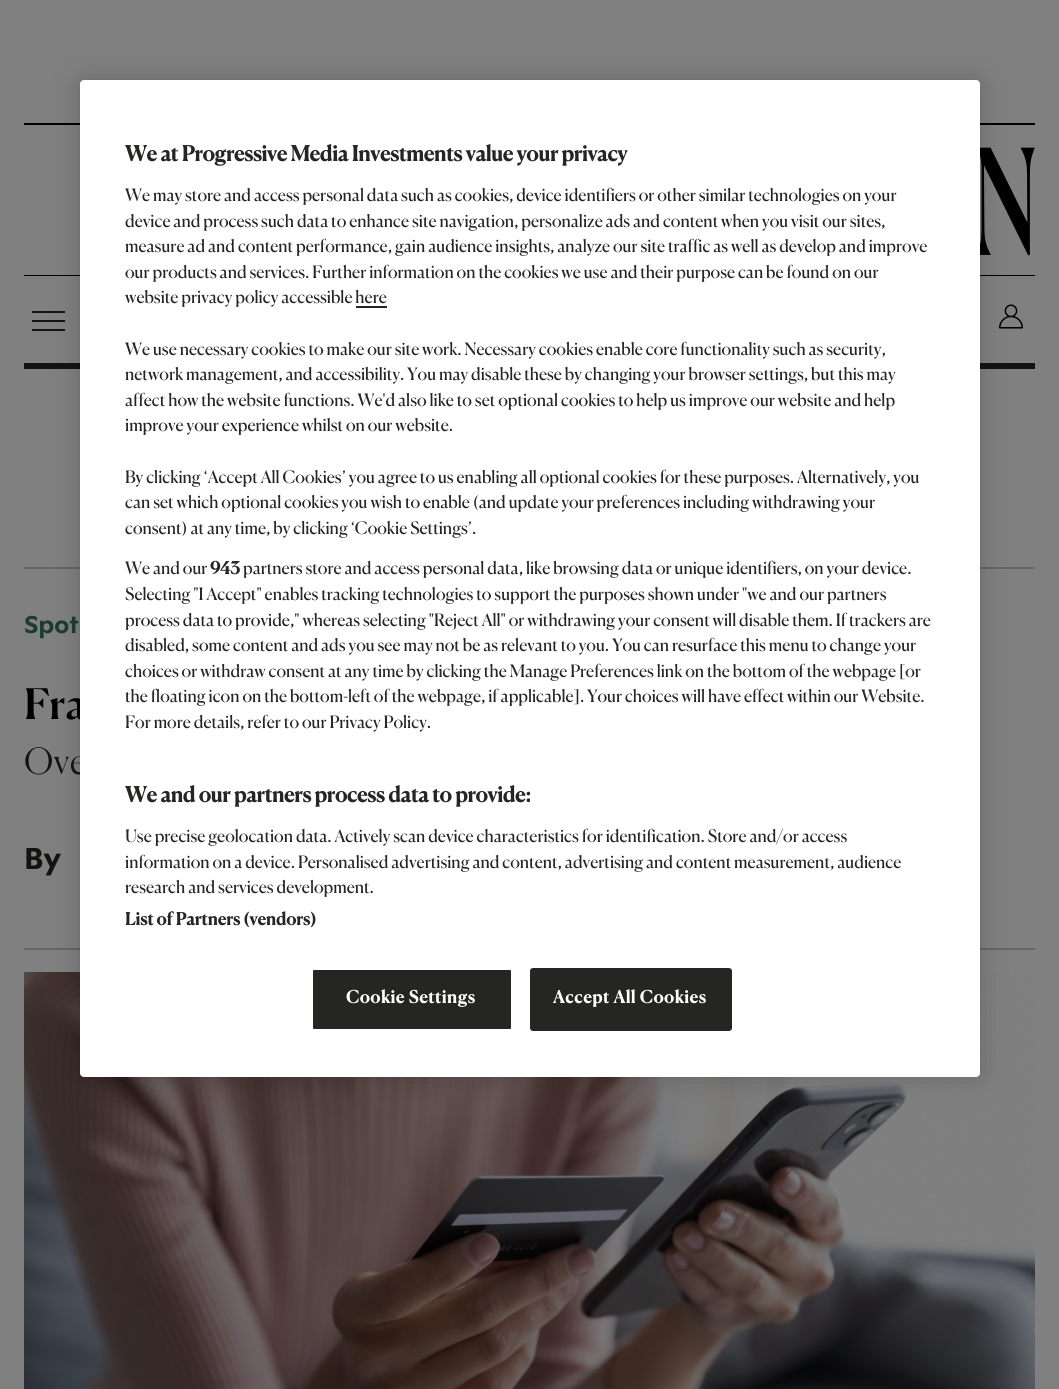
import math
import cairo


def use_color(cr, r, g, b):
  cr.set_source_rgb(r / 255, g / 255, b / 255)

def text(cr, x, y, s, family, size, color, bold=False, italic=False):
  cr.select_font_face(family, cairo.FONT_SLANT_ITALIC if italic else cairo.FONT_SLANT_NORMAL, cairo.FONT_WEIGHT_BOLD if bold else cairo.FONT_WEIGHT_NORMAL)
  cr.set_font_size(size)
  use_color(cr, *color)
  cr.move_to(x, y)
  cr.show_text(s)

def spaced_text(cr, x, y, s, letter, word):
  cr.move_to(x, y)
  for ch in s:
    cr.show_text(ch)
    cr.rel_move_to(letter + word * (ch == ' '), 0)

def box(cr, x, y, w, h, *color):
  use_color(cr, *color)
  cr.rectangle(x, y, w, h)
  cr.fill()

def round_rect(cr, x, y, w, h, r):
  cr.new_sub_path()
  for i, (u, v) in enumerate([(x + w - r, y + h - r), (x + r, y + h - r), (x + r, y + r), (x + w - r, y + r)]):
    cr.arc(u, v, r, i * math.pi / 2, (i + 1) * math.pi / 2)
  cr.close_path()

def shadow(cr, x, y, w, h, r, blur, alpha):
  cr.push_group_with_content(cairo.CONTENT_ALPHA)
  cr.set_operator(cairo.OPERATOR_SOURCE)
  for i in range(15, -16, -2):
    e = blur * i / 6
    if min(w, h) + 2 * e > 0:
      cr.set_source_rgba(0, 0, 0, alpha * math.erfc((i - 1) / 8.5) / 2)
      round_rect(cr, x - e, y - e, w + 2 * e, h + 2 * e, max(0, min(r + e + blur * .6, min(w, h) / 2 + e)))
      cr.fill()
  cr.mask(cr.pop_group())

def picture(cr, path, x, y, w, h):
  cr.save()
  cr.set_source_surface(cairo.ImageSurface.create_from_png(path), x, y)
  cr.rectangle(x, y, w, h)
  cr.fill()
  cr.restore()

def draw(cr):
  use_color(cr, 128, 128, 128)
  cr.paint()
  box(cr, 24, 123, 1011, 2, 0, 0, 0)
  box(cr, 24, 275, 1011, 1, 0, 0, 0)
  picture(cr, "img_01.png", 980, 147, 55, 109)
  box(cr, 24, 363, 1011, 6, 19, 19, 18)
  box(cr, 32, 311, 33, 2, 19, 19, 18)
  box(cr, 32, 320, 33, 2, 19, 19, 18)
  box(cr, 32, 329, 33, 2, 19, 19, 18)
  picture(cr, "img_02.png", 999, 304, 24, 25)
  box(cr, 24, 567, 1011, 2, 102, 102, 102)
  box(cr, 24, 948, 1011, 2, 102, 102, 102)
  picture(cr, "img_03.png", 24, 972, 1011, 417)
  use_color(cr, 0, 0, 0)
  shadow(cr, 80, 80, 900, 997, 4, 13.5, 0.2)
  text(cr, 24, 633, "Spot", "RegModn", 24, (27, 60, 43), bold=True)
  text(cr, 24, 719, "Fra", "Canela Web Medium", 42, (0, 0, 0))
  cr.select_font_face("Canela Web Light")
  cr.set_font_size(36)
  use_color(cr, 19, 19, 18)
  spaced_text(cr, 24, 774, "Ove", 0.5, 0)
  text(cr, 24, 869, "By", "RegModn", 30, (19, 19, 18), bold=True)
  use_color(cr, 255, 255, 255)
  round_rect(cr, 80, 80, 900, 997, 4)
  cr.fill()
  text(cr, 125, 161, "We at Progressive Media Investments value your privacy", "Canela Web", 21, (37, 37, 36), bold=True)
  text(cr, 125, 201, "We may store and access personal data such as cookies, device identifiers or other similar technologies on your", "Canela Web", 17.05, (37, 37, 36))
  text(cr, 125, 227, "device and process such data to enhance site navigation, personalize ads and content when you visit our sites,", "Canela Web", 17.05, (37, 37, 36))
  text(cr, 125, 252, "measure ad and content performance, gain audience insights, analyze our site traffic as well as develop and improve", "Canela Web", 17.05, (37, 37, 36))
  text(cr, 125, 278, "our products and services. Further information on the cookies we use and their purpose can be found on our", "Canela Web", 17.05, (37, 37, 36))
  text(cr, 125, 303, "website privacy policy accessible here", "Canela Web", 17.05, (37, 37, 36))
  box(cr, 356, 306, 31, 2, 37, 37, 36)
  text(cr, 125, 355, "We use necessary cookies to make our site work. Necessary cookies enable core functionality such as security,", "Canela Web", 17.05, (37, 37, 36))
  text(cr, 125, 380, "network management, and accessibility. You may disable these by changing your browser settings, but this may", "Canela Web", 17.05, (37, 37, 36))
  text(cr, 125, 406, "affect how the website functions. We'd also like to set optional cookies to help us improve our website and help", "Canela Web", 17.05, (37, 37, 36))
  text(cr, 125, 431, "improve your experience whilst on our website.", "Canela Web", 17.05, (37, 37, 36))
  text(cr, 125, 483, "By clicking ‘Accept All Cookies’ you agree to us enabling all optional cookies for these purposes. Alternatively, you", "Canela Web", 17.05, (37, 37, 36))
  text(cr, 125, 508, "can set which optional cookies you wish to enable (and update your preferences including withdrawing your", "Canela Web", 17.05, (37, 37, 36))
  text(cr, 125, 534, "consent) at any time, by clicking ‘Cookie Settings’.", "Canela Web", 17.05, (37, 37, 36))
  text(cr, 125, 574, "We and our", "Canela Web", 17.05, (37, 37, 36))
  text(cr, 210, 574, "943", "Canela Web", 17.05, (37, 37, 36), bold=True)
  text(cr, 243, 574, "partners store and access personal data, like browsing data or unique identifiers, on your device.", "Canela Web", 17.05, (37, 37, 36))
  text(cr, 125, 600, "Selecting \"I Accept\" enables tracking technologies to support the purposes shown under \"we and our partners", "Canela Web", 17.05, (37, 37, 36))
  text(cr, 125, 626, "process data to provide,\" whereas selecting \"Reject All\" or withdrawing your consent will disable them. If trackers are", "Canela Web", 17.05, (37, 37, 36))
  text(cr, 125, 651, "disabled, some content and ads you see may not be as relevant to you. You can resurface this menu to change your", "Canela Web", 17.05, (37, 37, 36))
  text(cr, 125, 677, "choices or withdraw consent at any time by clicking the Manage Preferences link on the bottom of the webpage [or", "Canela Web", 17.05, (37, 37, 36))
  text(cr, 125, 702, "the floating icon on the bottom-left of the webpage, if applicable]. Your choices will have effect within our Website.", "Canela Web", 17.05, (37, 37, 36))
  text(cr, 125, 728, "For more details, refer to our Privacy Policy.", "Canela Web", 17.05, (37, 37, 36))
  text(cr, 125, 802, "We and our partners process data to provide:", "Canela Web", 21, (37, 37, 36), bold=True)
  text(cr, 125, 842, "Use precise geolocation data. Actively scan device characteristics for identification. Store and/or access", "Canela Web", 17.05, (37, 37, 36))
  text(cr, 125, 868, "information on a device. Personalised advertising and content, advertising and content measurement, audience", "Canela Web", 17.05, (37, 37, 36))
  text(cr, 125, 893, "research and services development.", "Canela Web", 17.05, (37, 37, 36))
  cr.select_font_face("Canela Web", cairo.FONT_SLANT_NORMAL, cairo.FONT_WEIGHT_BOLD)
  spaced_text(cr, 125, 925, "List of Partners (vendors)", 0.2, 0)
  round_rect(cr, 312, 969, 200, 61, 2)
  cr.fill_preserve()
  use_color(cr, 255, 255, 255)
  cr.stroke()
  spaced_text(cr, 346, 1003, "Cookie Settings", 0.8, 0)
  use_color(cr, 37, 37, 36)
  round_rect(cr, 531, 969, 200, 61, 2)
  cr.fill_preserve()
  cr.stroke()
  use_color(cr, 255, 255, 255)
  spaced_text(cr, 553, 1003, "Accept All Cookies", 0.8, 0)


surface = cairo.ImageSurface(cairo.FORMAT_RGB24, 1059, 1389)
cr = cairo.Context(surface)
options = cairo.FontOptions()
options.set_hint_metrics(cairo.HINT_METRICS_OFF)
options.set_hint_style(cairo.HINT_STYLE_NONE)
cr.set_font_options(options)
cr.set_miter_limit(4)
draw(cr)
surface.write_to_png("out.png")
